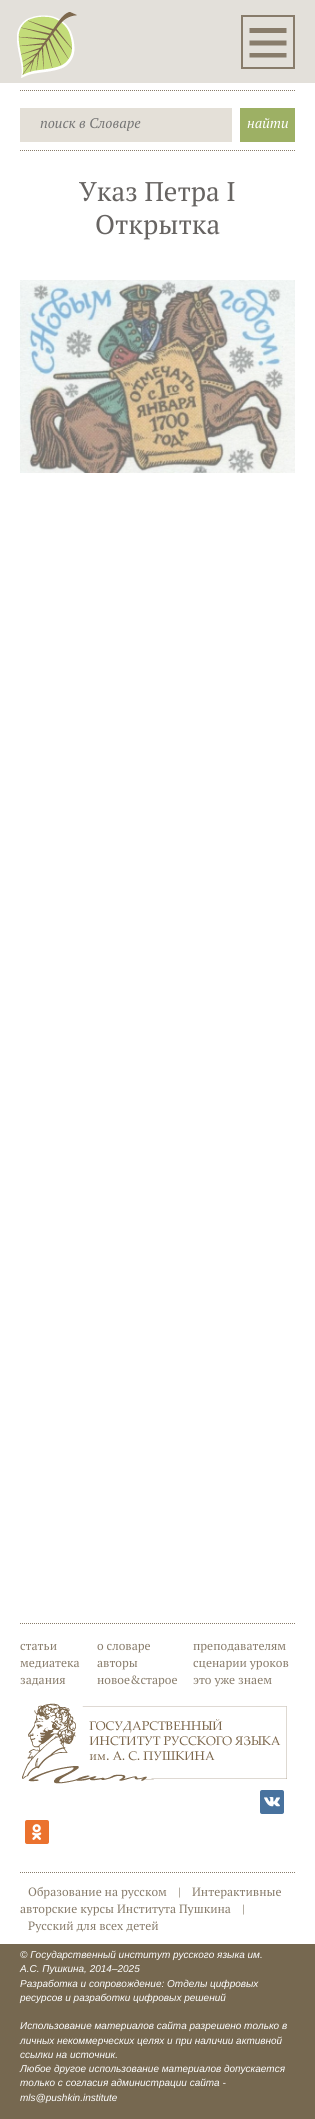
import math
import cairo


def use_color(cr, r, g, b):
  cr.set_source_rgb(r / 255, g / 255, b / 255)

def text(cr, x, y, s, family, size, color, bold=False, italic=False):
  cr.select_font_face(family, cairo.FONT_SLANT_ITALIC if italic else cairo.FONT_SLANT_NORMAL, cairo.FONT_WEIGHT_BOLD if bold else cairo.FONT_WEIGHT_NORMAL)
  cr.set_font_size(size)
  use_color(cr, *color)
  cr.move_to(x, y)
  cr.show_text(s)

def box(cr, x, y, w, h, *color):
  use_color(cr, *color)
  cr.rectangle(x, y, w, h)
  cr.fill()

def round_rect(cr, x, y, w, h, r):
  cr.new_sub_path()
  for i, (u, v) in enumerate([(x + w - r, y + h - r), (x + r, y + h - r), (x + r, y + r), (x + w - r, y + r)]):
    cr.arc(u, v, r, i * math.pi / 2, (i + 1) * math.pi / 2)
  cr.close_path()

def picture(cr, path, x, y, w, h):
  cr.save()
  cr.set_source_surface(cairo.ImageSurface.create_from_png(path), x, y)
  cr.rectangle(x, y, w, h)
  cr.fill()
  cr.restore()

def draw(cr):
  use_color(cr, 255, 255, 255)
  cr.paint()
  box(cr, 0, 0, 315, 83, 227, 224, 218)
  cr.rectangle(242, 16, 52, 52)
  use_color(cr, 136, 124, 107)
  cr.stroke()
  cr.new_path()
  cr.move_to(286.5, 28)
  cr.line_to(286.5, 33)
  cr.line_to(249.5, 33)
  cr.line_to(249.5, 28)
  cr.close_path()
  cr.move_to(249.5, 45.5)
  cr.line_to(286.5, 45.5)
  cr.line_to(286.5, 40.5)
  cr.line_to(249.5, 40.5)
  cr.close_path()
  cr.move_to(249.5, 57.5)
  cr.line_to(286.5, 57.5)
  cr.line_to(286.5, 53)
  cr.line_to(249.5, 53)
  cr.close_path()
  cr.fill()
  picture(cr, "img_01.png", 17, 12, 60, 66)
  cr.new_path()
  cr.move_to(20, 90.5)
  cr.line_to(295, 90.5)
  cr.set_line_width(1)
  cr.set_dash([1, 1])
  cr.stroke()
  cr.new_path()
  cr.move_to(20, 150.5)
  cr.line_to(295, 150.5)
  cr.stroke()
  box(cr, 20, 108, 212, 34, 228, 224, 216)
  box(cr, 240, 108, 55, 34, 157, 176, 100)
  picture(cr, "img_02.png", 20, 280, 275, 193)
  cr.new_path()
  cr.move_to(20, 1623.5)
  cr.line_to(295, 1623.5)
  use_color(cr, 136, 124, 107)
  cr.stroke()
  picture(cr, "img_03.png", 22, 1703, 265, 81)
  use_color(cr, 72, 114, 158)
  round_rect(cr, 260, 1790, 24, 24, 2)
  cr.fill()
  picture(cr, "img_04.png", 264, 1797, 16, 10)
  use_color(cr, 235, 114, 46)
  round_rect(cr, 25, 1820, 24, 24, 2)
  cr.fill()
  picture(cr, "img_05.png", 32, 1824, 10, 16)
  cr.new_path()
  cr.move_to(20, 1872.5)
  cr.line_to(295, 1872.5)
  use_color(cr, 136, 124, 107)
  cr.stroke()
  box(cr, 0, 1944, 315, 175, 118, 104, 80)
  text(cr, 40, 128, "поиск в Словаре", "PT Serif", 14, (117, 117, 117), italic=True)
  text(cr, 247, 128, "найти", "PT Serif", 14, (255, 255, 255), italic=True)
  text(cr, 79, 201, "Указ Петра I", "PT Serif", 27, (103, 100, 98))
  text(cr, 95, 234, "Открытка", "PT Serif", 27, (103, 100, 98))
  text(cr, 20, 1650, "статьи", "PT Serif", 12, (136, 124, 107))
  text(cr, 20, 1667, "медиатека", "PT Serif", 12, (136, 124, 107))
  text(cr, 20, 1684, "задания", "PT Serif", 12, (136, 124, 107))
  text(cr, 97, 1650, "о словаре", "PT Serif", 12, (136, 124, 107))
  text(cr, 97, 1667, "авторы", "PT Serif", 12, (136, 124, 107))
  text(cr, 97, 1684, "новое&старое", "PT Serif", 12, (136, 124, 107))
  text(cr, 193, 1650, "преподавателям", "PT Serif", 12, (136, 124, 107))
  text(cr, 193, 1667, "сценарии уроков", "PT Serif", 12, (136, 124, 107))
  text(cr, 193, 1684, "это уже знаем", "PT Serif", 12, (136, 124, 107))
  text(cr, 28, 1896, "Образование на русском", "PT Serif", 12, (136, 124, 107))
  text(cr, 178, 1896, "|", "PT Serif", 12, (136, 124, 107))
  text(cr, 192, 1896, "Интерактивные", "PT Serif", 12, (136, 124, 107))
  text(cr, 20, 1913, "авторские курсы Института Пушкина", "PT Serif", 12, (136, 124, 107))
  text(cr, 242, 1913, "|", "PT Serif", 12, (136, 124, 107))
  text(cr, 28, 1930, "Русский для всех детей", "PT Serif", 12, (136, 124, 107))
  text(cr, 20, 1958, "© Государственный институт русского языка им.", "Liberation Sans", 10, (255, 255, 255), italic=True)
  text(cr, 20, 1972, "А.С. Пушкина, 2014–2025", "Liberation Sans", 10, (255, 255, 255), italic=True)
  text(cr, 20, 1987, "Разработка и сопровождение: Отделы цифровых", "Liberation Sans", 10, (255, 255, 255), italic=True)
  text(cr, 20, 2001, "ресурсов и разработки цифровых решений", "Liberation Sans", 10, (255, 255, 255), italic=True)
  text(cr, 20, 2029, "Использование материалов сайта разрешено только в", "Liberation Sans", 10, (255, 255, 255), italic=True)
  text(cr, 20, 2044, "личных некоммерческих целях и при наличии активной", "Liberation Sans", 10, (255, 255, 255), italic=True)
  text(cr, 20, 2058, "ссылки на источник.", "Liberation Sans", 10, (255, 255, 255), italic=True)
  text(cr, 20, 2072, "Любое другое использование материалов допускается", "Liberation Sans", 10, (255, 255, 255), italic=True)
  text(cr, 20, 2086, "только с согласия администрации сайта -", "Liberation Sans", 10, (255, 255, 255), italic=True)
  text(cr, 20, 2101, "mls@pushkin.institute", "Liberation Sans", 10, (255, 255, 255), italic=True)


surface = cairo.ImageSurface(cairo.FORMAT_RGB24, 315, 2119)
cr = cairo.Context(surface)
options = cairo.FontOptions()
options.set_hint_metrics(cairo.HINT_METRICS_OFF)
options.set_hint_style(cairo.HINT_STYLE_NONE)
cr.set_font_options(options)
cr.set_miter_limit(4)
draw(cr)
surface.write_to_png("out.png")
